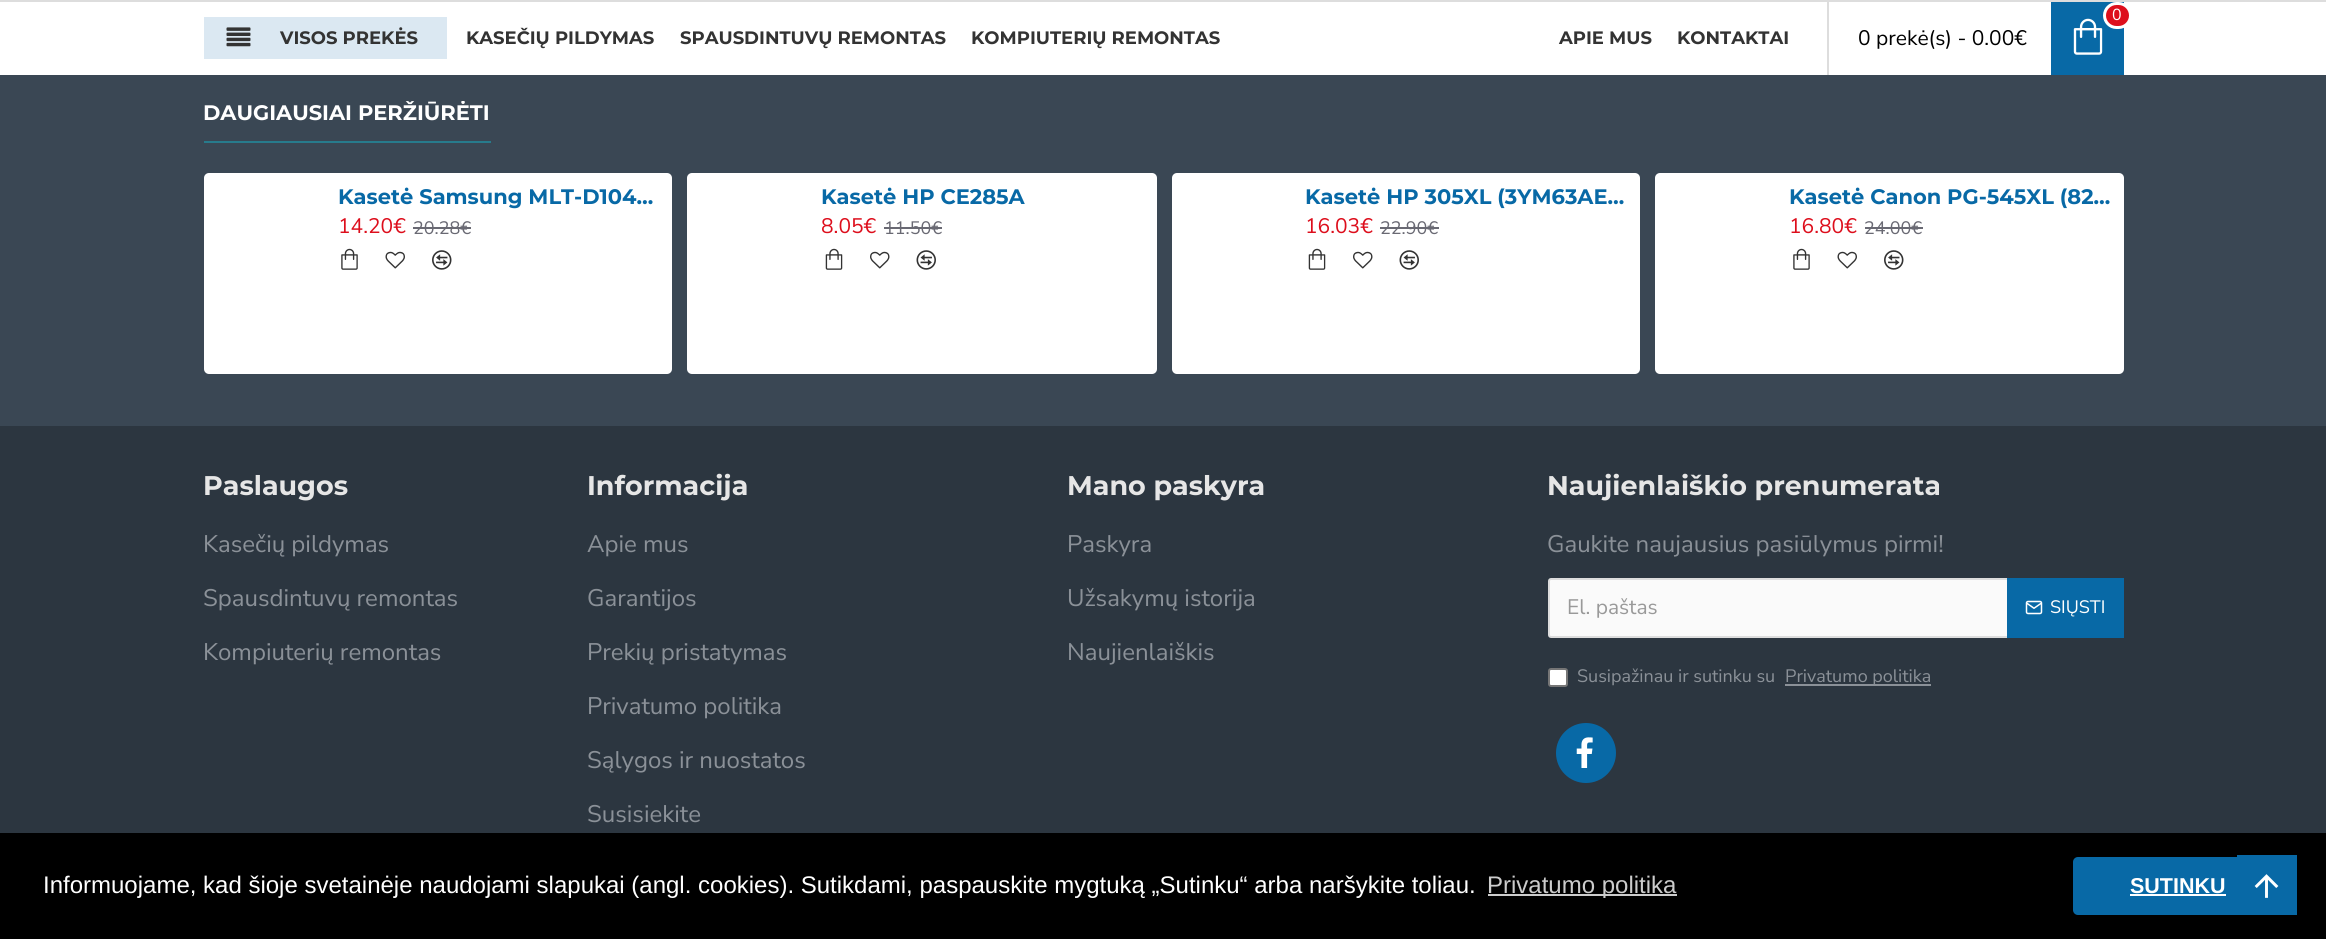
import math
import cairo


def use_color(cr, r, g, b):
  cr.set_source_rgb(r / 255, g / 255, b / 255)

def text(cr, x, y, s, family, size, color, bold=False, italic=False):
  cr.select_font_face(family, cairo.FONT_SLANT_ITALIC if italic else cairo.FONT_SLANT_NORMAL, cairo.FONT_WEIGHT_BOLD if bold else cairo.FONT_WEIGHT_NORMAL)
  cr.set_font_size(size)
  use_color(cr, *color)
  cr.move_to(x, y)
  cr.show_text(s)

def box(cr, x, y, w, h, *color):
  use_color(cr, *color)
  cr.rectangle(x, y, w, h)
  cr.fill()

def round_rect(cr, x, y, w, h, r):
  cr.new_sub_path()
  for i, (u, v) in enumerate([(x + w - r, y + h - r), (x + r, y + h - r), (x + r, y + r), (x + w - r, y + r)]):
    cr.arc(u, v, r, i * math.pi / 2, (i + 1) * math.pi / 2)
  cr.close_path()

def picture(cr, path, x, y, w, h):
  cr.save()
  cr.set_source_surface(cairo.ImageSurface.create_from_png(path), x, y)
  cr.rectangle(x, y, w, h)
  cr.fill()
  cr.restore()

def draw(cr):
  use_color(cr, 44, 54, 64)
  cr.paint()
  box(cr, 0, 2, 2326, 73, 255, 255, 255)
  box(cr, 0, 0, 2326, 2, 221, 221, 221)
  box(cr, 204, 17, 243, 42, 219, 232, 242)
  picture(cr, "img_01.png", 226, 27, 25, 20)
  box(cr, 1827, 0, 2, 75, 221, 221, 221)
  box(cr, 2051, 2, 73, 73, 8, 105, 166)
  picture(cr, "img_02.png", 2073, 18, 30, 37)
  use_color(cr, 221, 14, 28)
  round_rect(cr, 2104.5, 3.5, 26, 24, 12)
  cr.fill_preserve()
  use_color(cr, 255, 255, 255)
  cr.set_line_width(3)
  cr.stroke()
  box(cr, 0, 75, 2326, 351, 58, 71, 84)
  box(cr, 204, 141, 287, 2, 39, 123, 140)
  use_color(cr, 255, 255, 255)
  round_rect(cr, 204, 173, 468, 201, 5)
  cr.fill()
  box(cr, 413, 227, 58, 2, 105, 105, 115)
  picture(cr, "img_03.png", 341, 248, 17, 22)
  picture(cr, "img_04.png", 385, 251, 20, 18)
  picture(cr, "img_05.png", 432, 250, 20, 20)
  use_color(cr, 255, 255, 255)
  round_rect(cr, 687, 173, 470, 201, 5)
  cr.fill()
  box(cr, 884, 227, 58, 2, 105, 105, 115)
  picture(cr, "img_06.png", 825, 248, 18, 22)
  picture(cr, "img_07.png", 870, 251, 20, 18)
  picture(cr, "img_08.png", 916, 250, 20, 20)
  use_color(cr, 255, 255, 255)
  round_rect(cr, 1172, 173, 468, 201, 5)
  cr.fill()
  box(cr, 1380, 227, 59, 2, 105, 105, 115)
  picture(cr, "img_06.png", 1308, 248, 18, 22)
  picture(cr, "img_07.png", 1353, 251, 20, 18)
  picture(cr, "img_08.png", 1399, 250, 20, 20)
  use_color(cr, 255, 255, 255)
  round_rect(cr, 1655, 173, 469, 201, 5)
  cr.fill()
  box(cr, 1865, 227, 58, 2, 105, 105, 115)
  picture(cr, "img_03.png", 1793, 248, 17, 22)
  picture(cr, "img_04.png", 1837, 251, 20, 18)
  picture(cr, "img_05.png", 1884, 250, 20, 20)
  use_color(cr, 250, 250, 250)
  round_rect(cr, 1549, 579, 574, 58, 2)
  cr.fill_preserve()
  use_color(cr, 221, 221, 221)
  cr.set_line_width(2)
  cr.stroke()
  box(cr, 2007, 578, 117, 60, 8, 105, 166)
  picture(cr, "img_09.png", 2025, 600, 18, 15)
  use_color(cr, 255, 255, 255)
  round_rect(cr, 1549, 669, 18, 17, 2)
  cr.fill_preserve()
  use_color(cr, 118, 118, 118)
  cr.stroke()
  box(cr, 1785, 684, 146, 2, 139, 145, 152)
  use_color(cr, 8, 105, 166)
  cr.arc(1586, 753, 30, 0, 2 * math.pi)
  cr.fill()
  picture(cr, "img_10.png", 1576, 737, 17, 31)
  box(cr, 0, 833, 2326, 106, 0, 0, 0)
  box(cr, 1488, 894, 189, 2, 204, 204, 204)
  use_color(cr, 8, 105, 166)
  round_rect(cr, 2073, 857, 210, 58, 5)
  cr.fill()
  box(cr, 2130, 894, 96, 2, 255, 255, 255)
  box(cr, 2237, 855, 60, 60, 8, 105, 166)
  picture(cr, "img_11.png", 2254, 874, 25, 24)
  text(cr, 280, 44, "VISOS PREKĖS", "Montserrat", 18, (51, 51, 51), bold=True)
  text(cr, 466, 44, "KASEČIŲ PILDYMAS", "Montserrat", 18, (51, 51, 51), bold=True)
  text(cr, 680, 44, "SPAUSDINTUVŲ REMONTAS", "Montserrat", 18, (51, 51, 51), bold=True)
  text(cr, 971, 44, "KOMPIUTERIŲ REMONTAS", "Montserrat", 18, (51, 51, 51), bold=True)
  text(cr, 1559, 44, "APIE MUS", "Montserrat", 18, (51, 51, 51), bold=True)
  text(cr, 1677, 44, "KONTAKTAI", "Montserrat", 18, (51, 51, 51), bold=True)
  text(cr, 2112, 20, "0", "Nunito Sans", 16, (255, 255, 255))
  text(cr, 1858, 45, "0 prekė(s) - 0.00€", "Nunito Sans", 21, (0, 0, 0))
  cr.save()
  cr.rectangle(204, 101, 1920, 42)
  cr.clip()
  text(cr, 203, 120, "DAUGIAUSIAI PERŽIŪRĖTI", "Montserrat", 21, (255, 255, 255), bold=True)
  cr.restore()
  text(cr, 338, 204, "Kasetė Samsung MLT-D104…", "Montserrat", 21, (8, 105, 166), bold=True)
  text(cr, 338, 233, "14.20€", "Nunito Sans", 21, (221, 14, 28))
  text(cr, 413, 234, "20.28€", "Nunito Sans", 18, (105, 105, 115))
  text(cr, 821, 204, "Kasetė HP CE285A", "Montserrat", 21, (8, 105, 166), bold=True)
  text(cr, 821, 233, "8.05€", "Nunito Sans", 21, (221, 14, 28))
  text(cr, 884, 234, "11.50€", "Nunito Sans", 18, (105, 105, 115))
  text(cr, 1305, 204, "Kasetė HP 305XL (3YM63AE…", "Montserrat", 21, (8, 105, 166), bold=True)
  text(cr, 1305, 233, "16.03€", "Nunito Sans", 21, (221, 14, 28))
  text(cr, 1380, 234, "22.90€", "Nunito Sans", 18, (105, 105, 115))
  text(cr, 1789, 204, "Kasetė Canon PG-545XL (82…", "Montserrat", 21, (8, 105, 166), bold=True)
  text(cr, 1789, 233, "16.80€", "Nunito Sans", 21, (221, 14, 28))
  text(cr, 1864, 234, "24.00€", "Nunito Sans", 18, (105, 105, 115))
  text(cr, 203, 495, "Paslaugos", "Montserrat", 27, (230, 230, 230), bold=True)
  text(cr, 203, 552, "Kasečių pildymas", "Nunito Sans", 24, (139, 145, 152))
  text(cr, 203, 606, "Spausdintuvų remontas", "Nunito Sans", 24, (139, 145, 152))
  text(cr, 203, 660, "Kompiuterių remontas", "Nunito Sans", 24, (139, 145, 152))
  text(cr, 587, 495, "Informacija", "Montserrat", 27, (230, 230, 230), bold=True)
  text(cr, 587, 552, "Apie mus", "Nunito Sans", 24, (139, 145, 152))
  text(cr, 587, 606, "Garantijos", "Nunito Sans", 24, (139, 145, 152))
  text(cr, 587, 660, "Prekių pristatymas", "Nunito Sans", 24, (139, 145, 152))
  text(cr, 587, 714, "Privatumo politika", "Nunito Sans", 24, (139, 145, 152))
  text(cr, 587, 768, "Sąlygos ir nuostatos", "Nunito Sans", 24, (139, 145, 152))
  text(cr, 587, 822, "Susisiekite", "Nunito Sans", 24, (139, 145, 152))
  text(cr, 1067, 495, "Mano paskyra", "Montserrat", 27, (230, 230, 230), bold=True)
  text(cr, 1067, 552, "Paskyra", "Nunito Sans", 24, (139, 145, 152))
  text(cr, 1067, 606, "Užsakymų istorija", "Nunito Sans", 24, (139, 145, 152))
  text(cr, 1067, 660, "Naujienlaiškis", "Nunito Sans", 24, (139, 145, 152))
  text(cr, 1547, 495, "Naujienlaiškio prenumerata", "Montserrat", 27, (230, 230, 230), bold=True)
  text(cr, 1547, 552, "Gaukite naujausius pasiūlymus pirmi!", "Nunito Sans", 24, (139, 145, 152))
  text(cr, 1567, 614, "El. paštas", "Nunito Sans", 21, (153, 153, 153))
  text(cr, 2050, 613, "SIŲSTI", "Nunito Sans", 18, (255, 255, 255))
  text(cr, 1577, 682, "Susipažinau ir sutinku su", "Nunito Sans", 18, (139, 145, 152))
  text(cr, 1785, 682, "Privatumo politika", "Nunito Sans", 18, (139, 145, 152))
  text(cr, 43, 893, "Informuojame, kad šioje svetainėje naudojami slapukai (angl. cookies). Sutikdami, paspauskite mygtuką „Sutinku“ arba naršykite toliau.", "Liberation Sans", 24, (255, 255, 255))
  text(cr, 1487, 893, "Privatumo politika", "Liberation Sans", 24, (204, 204, 204))
  text(cr, 2130, 893, "SUTINKU", "Liberation Sans", 21.5, (255, 255, 255), bold=True)


surface = cairo.ImageSurface(cairo.FORMAT_RGB24, 2326, 939)
cr = cairo.Context(surface)
options = cairo.FontOptions()
options.set_hint_metrics(cairo.HINT_METRICS_OFF)
options.set_hint_style(cairo.HINT_STYLE_NONE)
cr.set_font_options(options)
cr.set_miter_limit(4)
draw(cr)
surface.write_to_png("out.png")
